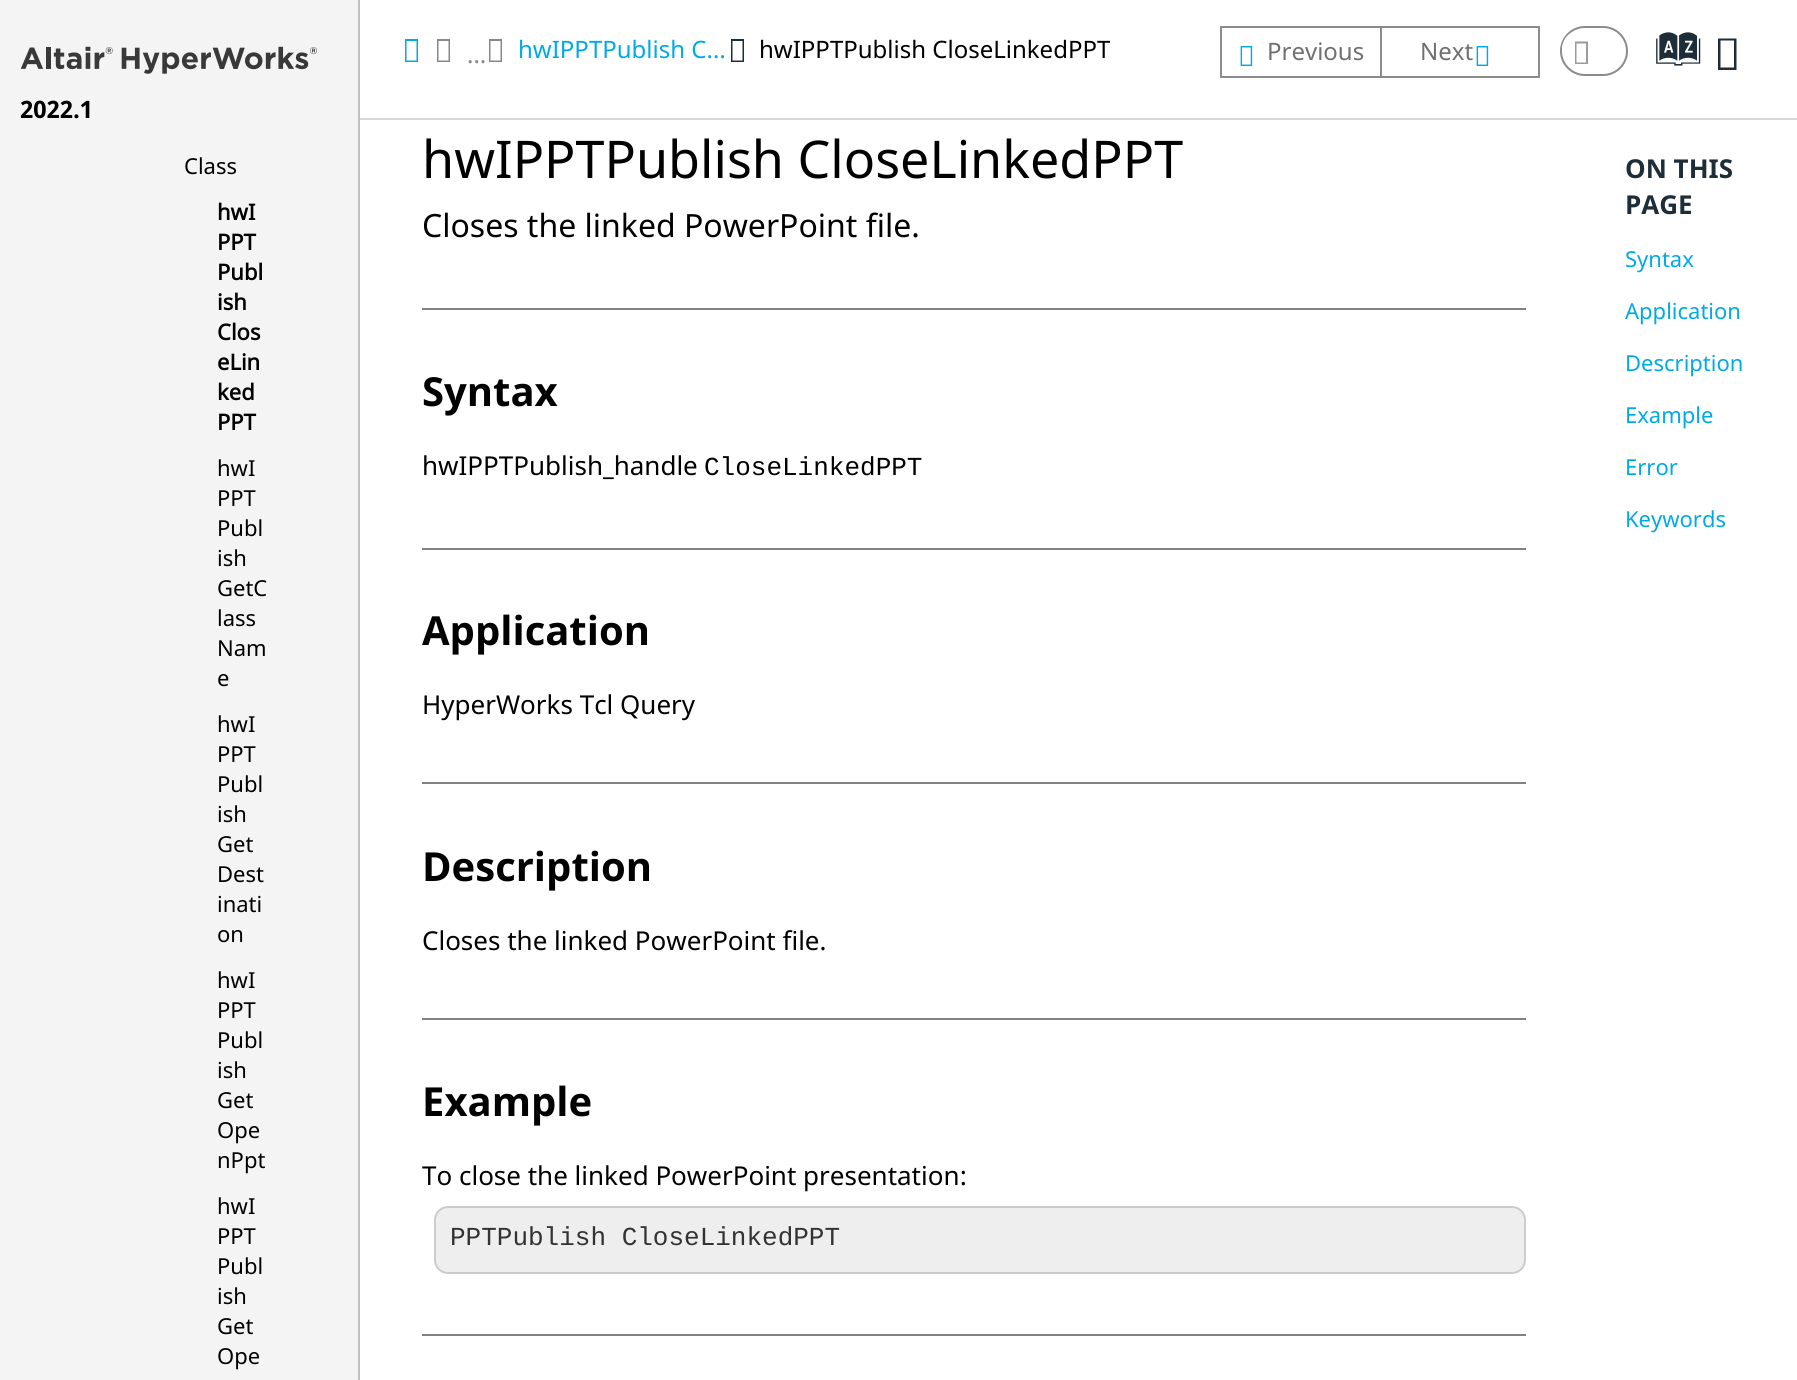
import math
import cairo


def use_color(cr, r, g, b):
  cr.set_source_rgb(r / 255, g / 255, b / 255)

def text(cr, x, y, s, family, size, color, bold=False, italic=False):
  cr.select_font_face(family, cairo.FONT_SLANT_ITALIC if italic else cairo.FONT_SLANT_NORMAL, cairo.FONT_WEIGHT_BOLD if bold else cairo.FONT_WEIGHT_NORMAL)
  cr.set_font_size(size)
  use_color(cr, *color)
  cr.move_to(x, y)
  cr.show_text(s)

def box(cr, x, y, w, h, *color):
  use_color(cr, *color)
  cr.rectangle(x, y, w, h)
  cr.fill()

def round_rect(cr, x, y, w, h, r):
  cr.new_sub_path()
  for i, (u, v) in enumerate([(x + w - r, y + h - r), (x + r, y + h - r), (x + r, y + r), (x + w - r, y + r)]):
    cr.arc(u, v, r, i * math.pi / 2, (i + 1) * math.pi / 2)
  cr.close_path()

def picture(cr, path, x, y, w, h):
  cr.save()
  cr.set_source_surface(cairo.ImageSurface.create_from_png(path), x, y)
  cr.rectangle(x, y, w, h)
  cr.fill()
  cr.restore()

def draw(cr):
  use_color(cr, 255, 255, 255)
  cr.paint()
  box(cr, 0, 0, 358, 1380, 244, 244, 244)
  box(cr, 358, 0, 2, 1380, 192, 192, 192)
  picture(cr, "img_01.png", 20, 46, 297, 28)
  box(cr, 360, 118, 1437, 2, 216, 216, 216)
  use_color(cr, 0, 170, 230)
  cr.new_path()
  cr.move_to(405, 62)
  cr.line_to(405, 39)
  cr.line_to(418, 39)
  cr.line_to(418, 62)
  cr.close_path()
  cr.move_to(406.5, 60.5)
  cr.line_to(416.5, 60.5)
  cr.line_to(416.5, 41)
  cr.line_to(406.5, 41)
  cr.close_path()
  cr.fill()
  use_color(cr, 133, 137, 141)
  cr.new_path()
  cr.move_to(489, 62)
  cr.line_to(489, 39)
  cr.line_to(502, 39)
  cr.line_to(502, 62)
  cr.close_path()
  cr.move_to(490.5, 60.5)
  cr.line_to(500.5, 60.5)
  cr.line_to(500.5, 41)
  cr.line_to(490.5, 41)
  cr.close_path()
  cr.fill()
  use_color(cr, 29, 46, 56)
  cr.new_path()
  cr.move_to(731, 62)
  cr.line_to(731, 39)
  cr.line_to(744, 39)
  cr.line_to(744, 62)
  cr.close_path()
  cr.move_to(732.5, 60.5)
  cr.line_to(742.5, 60.5)
  cr.line_to(742.5, 41)
  cr.line_to(732.5, 41)
  cr.close_path()
  cr.fill()
  use_color(cr, 133, 137, 141)
  cr.new_path()
  cr.move_to(437, 62)
  cr.line_to(437, 39)
  cr.line_to(450, 39)
  cr.line_to(450, 62)
  cr.close_path()
  cr.move_to(438.5, 60.5)
  cr.line_to(448.5, 60.5)
  cr.line_to(448.5, 41)
  cr.line_to(438.5, 41)
  cr.close_path()
  cr.fill()
  box(cr, 1220, 26, 160, 2, 139, 139, 139)
  box(cr, 1220, 76, 160, 2, 139, 139, 139)
  box(cr, 1220, 26, 2, 52, 139, 139, 139)
  picture(cr, "img_02.png", 1240, 46, 13, 20)
  cr.rectangle(1381, 27, 158, 50)
  cr.stroke()
  picture(cr, "img_02.png", 1476, 46, 13, 20)
  round_rect(cr, 1561, 27, 66, 48, 24)
  cr.stroke()
  use_color(cr, 255, 255, 255)
  round_rect(cr, 1562, 30, 40, 38, 19)
  cr.fill()
  use_color(cr, 155, 155, 155)
  cr.new_path()
  cr.move_to(1575, 64)
  cr.line_to(1575, 41.5)
  cr.line_to(1588, 41.5)
  cr.line_to(1588, 64)
  cr.close_path()
  cr.move_to(1576.5, 62.5)
  cr.line_to(1586, 62.5)
  cr.line_to(1586, 43.5)
  cr.line_to(1576.5, 43.5)
  cr.close_path()
  cr.fill()
  use_color(cr, 29, 46, 56)
  cr.new_path()
  cr.move_to(1718, 70)
  cr.line_to(1718, 38.5)
  cr.line_to(1736.5, 38.5)
  cr.line_to(1736.5, 70)
  cr.close_path()
  cr.move_to(1720.5, 67.5)
  cr.line_to(1734, 67.5)
  cr.line_to(1734, 40.5)
  cr.line_to(1720.5, 40.5)
  cr.close_path()
  cr.fill()
  box(cr, 422, 308, 1104, 2, 130, 130, 130)
  box(cr, 422, 548, 1104, 2, 130, 130, 130)
  box(cr, 422, 782, 1104, 2, 130, 130, 130)
  box(cr, 422, 1018, 1104, 2, 130, 130, 130)
  use_color(cr, 238, 238, 238)
  round_rect(cr, 435, 1207, 1090, 66, 13)
  cr.fill_preserve()
  use_color(cr, 204, 204, 204)
  cr.stroke()
  box(cr, 422, 1334, 1104, 2, 130, 130, 130)
  text(cr, 20, 118, "2022.1", "Noto Sans", 24, (0, 0, 0), bold=True)
  text(cr, 184, 174, "Class", "Noto Sans", 22, (0, 0, 0))
  text(cr, 217, 220, "hwI", "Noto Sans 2", 22, (0, 0, 0), bold=True)
  text(cr, 217, 250, "PPT", "Noto Sans 2", 22, (0, 0, 0), bold=True)
  text(cr, 217, 280, "Publ", "Noto Sans 2", 22, (0, 0, 0), bold=True)
  text(cr, 217, 310, "ish", "Noto Sans 2", 22, (0, 0, 0), bold=True)
  text(cr, 217, 340, "Clos", "Noto Sans 2", 22, (0, 0, 0), bold=True)
  text(cr, 217, 370, "eLin", "Noto Sans 2", 22, (0, 0, 0), bold=True)
  text(cr, 217, 400, "ked", "Noto Sans 2", 22, (0, 0, 0), bold=True)
  text(cr, 217, 430, "PPT", "Noto Sans 2", 22, (0, 0, 0), bold=True)
  text(cr, 217, 476, "hwI", "Noto Sans", 22, (0, 0, 0))
  text(cr, 217, 506, "PPT", "Noto Sans", 22, (0, 0, 0))
  text(cr, 217, 536, "Publ", "Noto Sans", 22, (0, 0, 0))
  text(cr, 217, 566, "ish", "Noto Sans", 22, (0, 0, 0))
  text(cr, 217, 596, "GetC", "Noto Sans", 22, (0, 0, 0))
  text(cr, 217, 626, "lass", "Noto Sans", 22, (0, 0, 0))
  text(cr, 217, 656, "Nam", "Noto Sans", 22, (0, 0, 0))
  text(cr, 217, 686, "e", "Noto Sans", 22, (0, 0, 0))
  text(cr, 217, 732, "hwI", "Noto Sans", 22, (0, 0, 0))
  text(cr, 217, 762, "PPT", "Noto Sans", 22, (0, 0, 0))
  text(cr, 217, 792, "Publ", "Noto Sans", 22, (0, 0, 0))
  text(cr, 217, 822, "ish", "Noto Sans", 22, (0, 0, 0))
  text(cr, 217, 852, "Get", "Noto Sans", 22, (0, 0, 0))
  text(cr, 217, 882, "Dest", "Noto Sans", 22, (0, 0, 0))
  text(cr, 217, 912, "inati", "Noto Sans", 22, (0, 0, 0))
  text(cr, 217, 942, "on", "Noto Sans", 22, (0, 0, 0))
  text(cr, 217, 988, "hwI", "Noto Sans", 22, (0, 0, 0))
  text(cr, 217, 1018, "PPT", "Noto Sans", 22, (0, 0, 0))
  text(cr, 217, 1048, "Publ", "Noto Sans", 22, (0, 0, 0))
  text(cr, 217, 1078, "ish", "Noto Sans", 22, (0, 0, 0))
  text(cr, 217, 1108, "Get", "Noto Sans", 22, (0, 0, 0))
  text(cr, 217, 1138, "Ope", "Noto Sans", 22, (0, 0, 0))
  text(cr, 217, 1168, "nPpt", "Noto Sans", 22, (0, 0, 0))
  text(cr, 217, 1214, "hwI", "Noto Sans", 22, (0, 0, 0))
  text(cr, 217, 1244, "PPT", "Noto Sans", 22, (0, 0, 0))
  text(cr, 217, 1274, "Publ", "Noto Sans", 22, (0, 0, 0))
  text(cr, 217, 1304, "ish", "Noto Sans", 22, (0, 0, 0))
  text(cr, 217, 1334, "Get", "Noto Sans", 22, (0, 0, 0))
  text(cr, 217, 1364, "Ope", "Noto Sans", 22, (0, 0, 0))
  text(cr, 518, 58, "hwIPPTPublish C…", "Noto Sans", 24, (0, 170, 230))
  cr.save()
  cr.rectangle(728, 26, 382, 46)
  cr.clip()
  text(cr, 759, 58, "hwIPPTPublish CloseLinkedPPT", "Noto Sans", 24, (0, 0, 0))
  cr.restore()
  text(cr, 467, 63, "...", "Noto Sans", 24, (133, 137, 141))
  text(cr, 1267, 60, "Previous", "Noto Sans", 24, (112, 112, 112))
  text(cr, 1420, 60, "Next", "Noto Sans", 24, (112, 112, 112))
  text(cr, 1661, 71, "a", "Oxygen", 47, (29, 46, 56))
  text(cr, 422, 178, "hwIPPTPublish CloseLinkedPPT", "Noto Sans", 52, (0, 0, 0))
  text(cr, 422, 237, "Closes the linked PowerPoint file.", "Noto Sans", 32, (0, 0, 0))
  text(cr, 422, 406, "Syntax", "Noto Sans", 40, (0, 0, 0), bold=True)
  text(cr, 422, 475, "hwIPPTPublish_handle", "Noto Sans", 26, (0, 0, 0))
  text(cr, 704, 475, "CloseLinkedPPT", "Liberation Mono", 26, (0, 0, 0))
  text(cr, 422, 645, "Application", "Noto Sans", 40, (0, 0, 0), bold=True)
  text(cr, 422, 714, "HyperWorks Tcl Query", "Noto Sans", 26, (0, 0, 0))
  text(cr, 422, 881, "Description", "Noto Sans", 40, (0, 0, 0), bold=True)
  text(cr, 422, 950, "Closes the linked PowerPoint file.", "Noto Sans", 26, (0, 0, 0))
  text(cr, 422, 1116, "Example", "Noto Sans", 40, (0, 0, 0), bold=True)
  text(cr, 422, 1185, "To close the linked PowerPoint presentation:", "Noto Sans", 26, (0, 0, 0))
  text(cr, 450, 1245, "PPTPublish CloseLinkedPPT", "Liberation Mono", 26, (51, 51, 51))
  text(cr, 1625, 178, "ON THIS", "Noto Sans", 26, (29, 46, 56), bold=True)
  text(cr, 1625, 214, "PAGE", "Noto Sans", 26, (29, 46, 56), bold=True)
  text(cr, 1625, 267, "Syntax", "Noto Sans", 22, (0, 170, 230))
  text(cr, 1625, 319, "Application", "Noto Sans", 22, (0, 170, 230))
  text(cr, 1625, 371, "Description", "Noto Sans", 22, (0, 170, 230))
  text(cr, 1625, 423, "Example", "Noto Sans", 22, (0, 170, 230))
  text(cr, 1625, 475, "Error", "Noto Sans", 22, (0, 170, 230))
  text(cr, 1625, 527, "Keywords", "Noto Sans", 22, (0, 170, 230))


surface = cairo.ImageSurface(cairo.FORMAT_RGB24, 1797, 1380)
cr = cairo.Context(surface)
options = cairo.FontOptions()
options.set_hint_metrics(cairo.HINT_METRICS_OFF)
options.set_hint_style(cairo.HINT_STYLE_NONE)
cr.set_font_options(options)
cr.set_miter_limit(4)
draw(cr)
surface.write_to_png("out.png")
